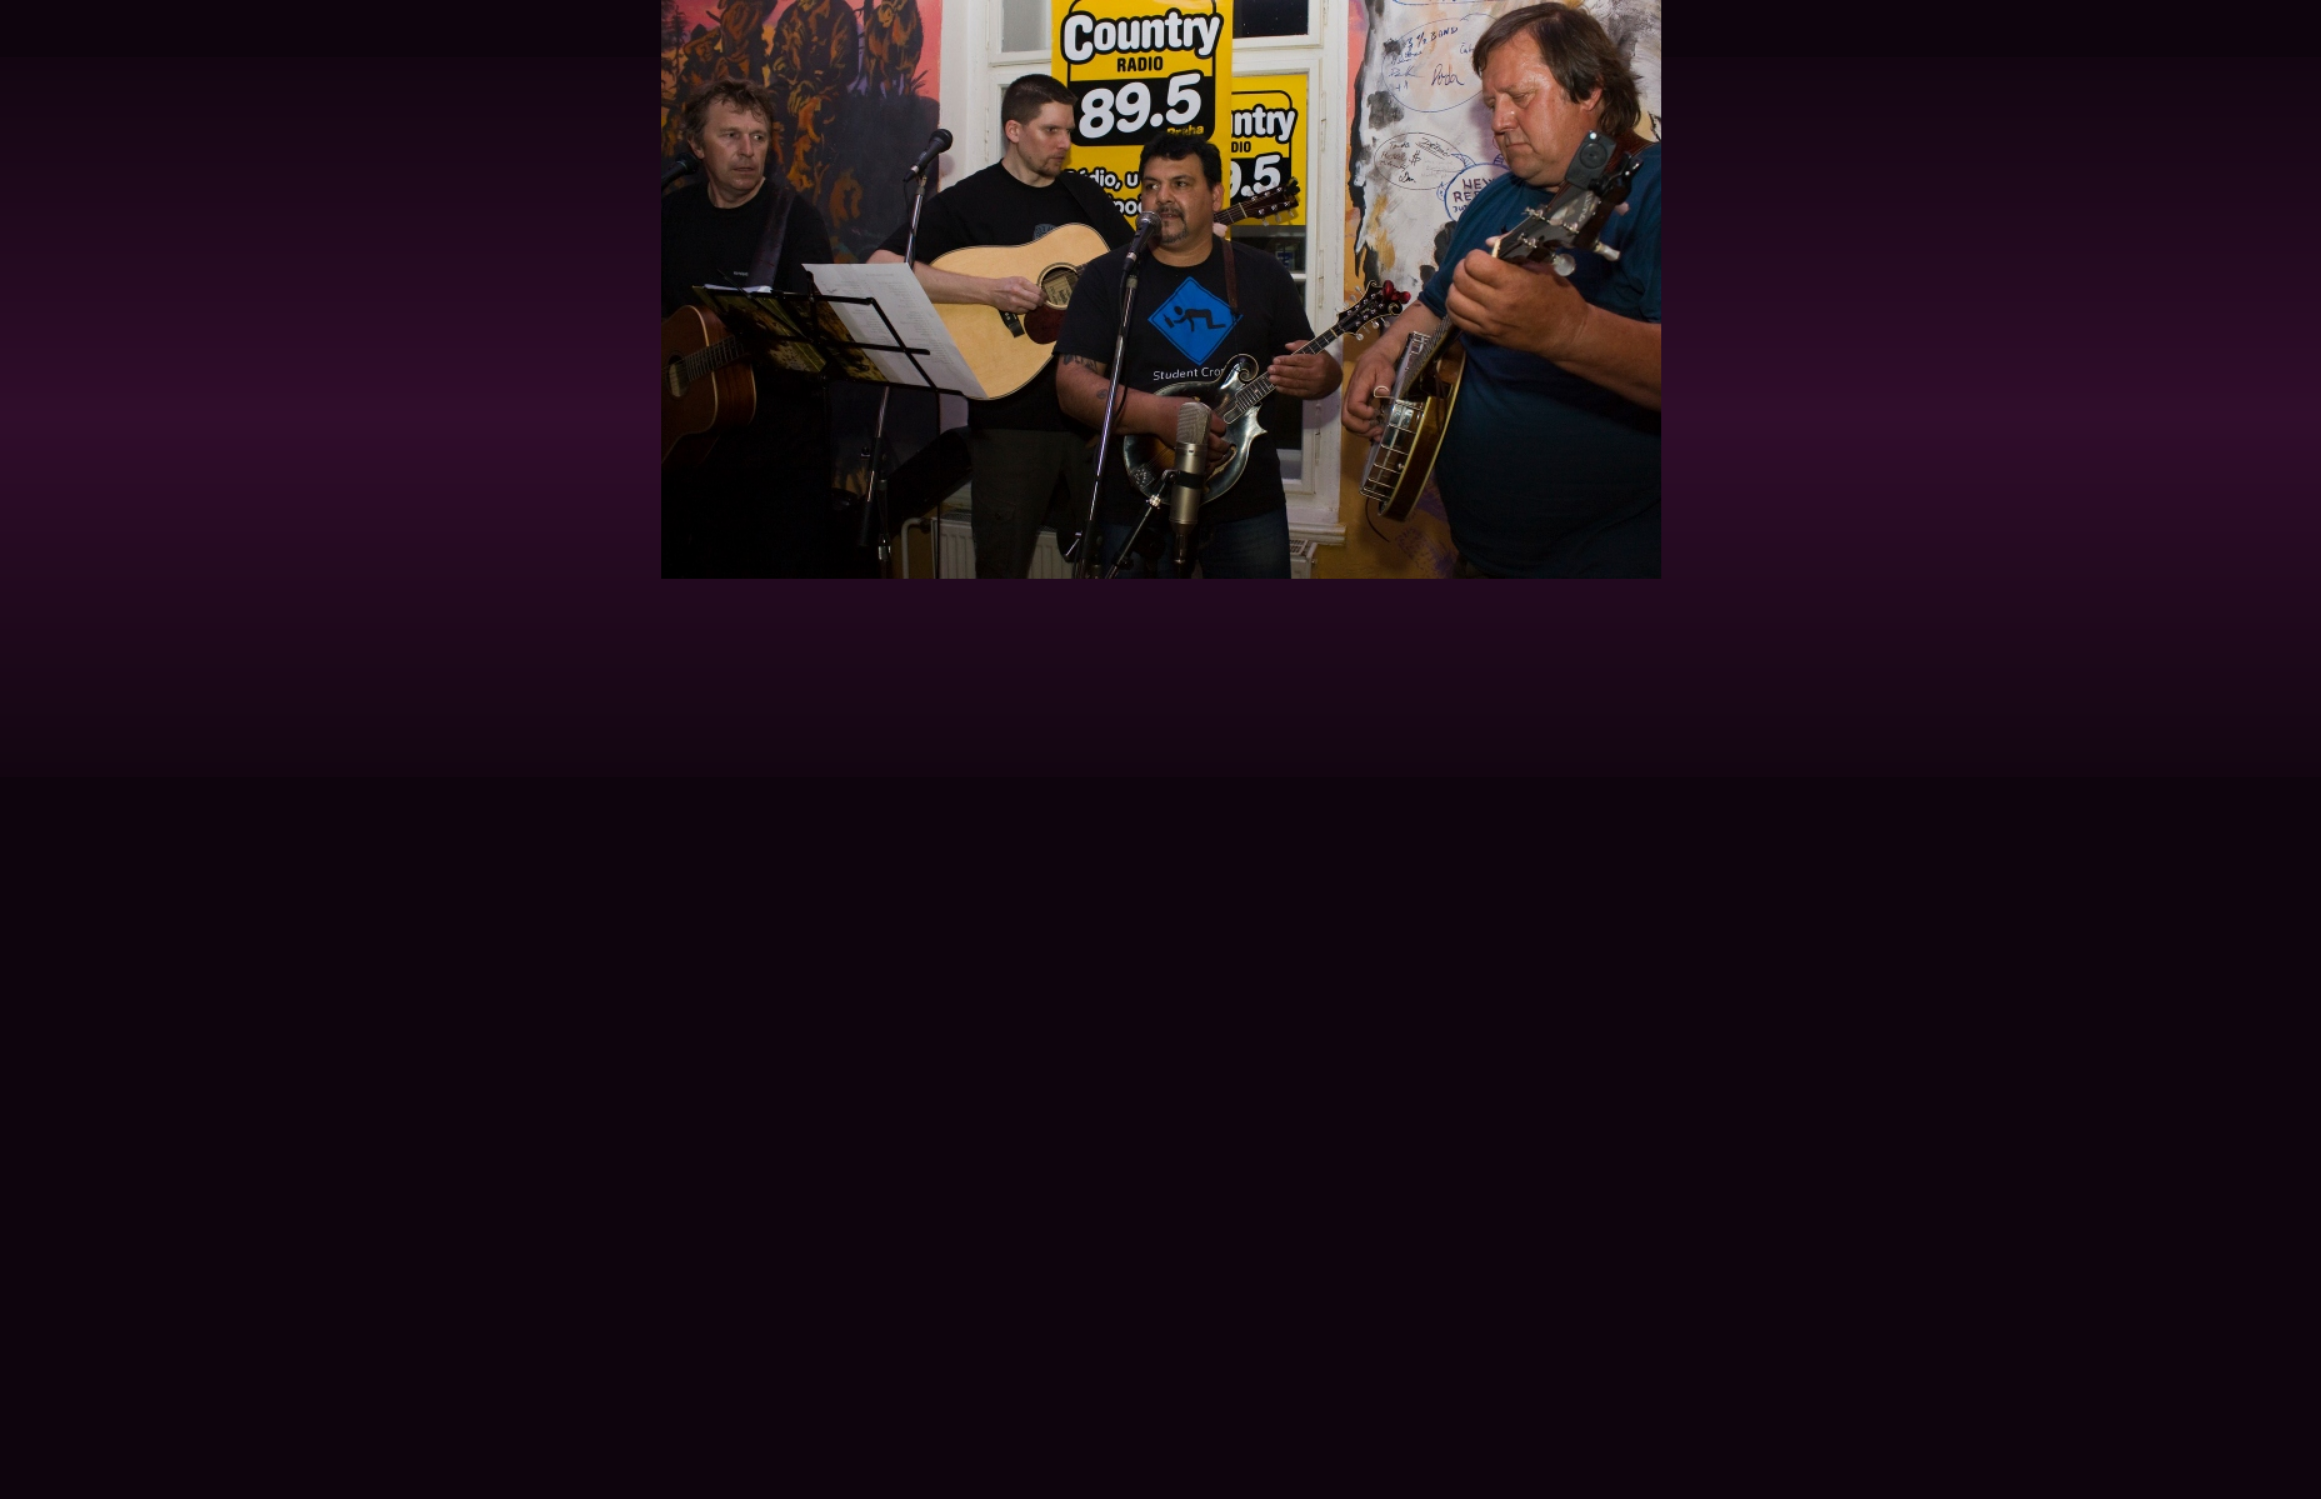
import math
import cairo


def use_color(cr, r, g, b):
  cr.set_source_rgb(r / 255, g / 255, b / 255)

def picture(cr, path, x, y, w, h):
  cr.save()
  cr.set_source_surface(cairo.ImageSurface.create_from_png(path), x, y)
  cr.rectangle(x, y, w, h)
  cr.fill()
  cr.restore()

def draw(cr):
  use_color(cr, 14, 4, 13)
  cr.paint()
  picture(cr, "img_01.png", 0, 579, 2321, 198)
  picture(cr, "img_02.png", 0, 57, 2321, 522)
  picture(cr, "img_03.png", 661, 0, 1001, 579)


surface = cairo.ImageSurface(cairo.FORMAT_RGB24, 2321, 1499)
cr = cairo.Context(surface)
options = cairo.FontOptions()
options.set_hint_metrics(cairo.HINT_METRICS_OFF)
options.set_hint_style(cairo.HINT_STYLE_NONE)
cr.set_font_options(options)
cr.set_miter_limit(4)
draw(cr)
surface.write_to_png("out.png")
